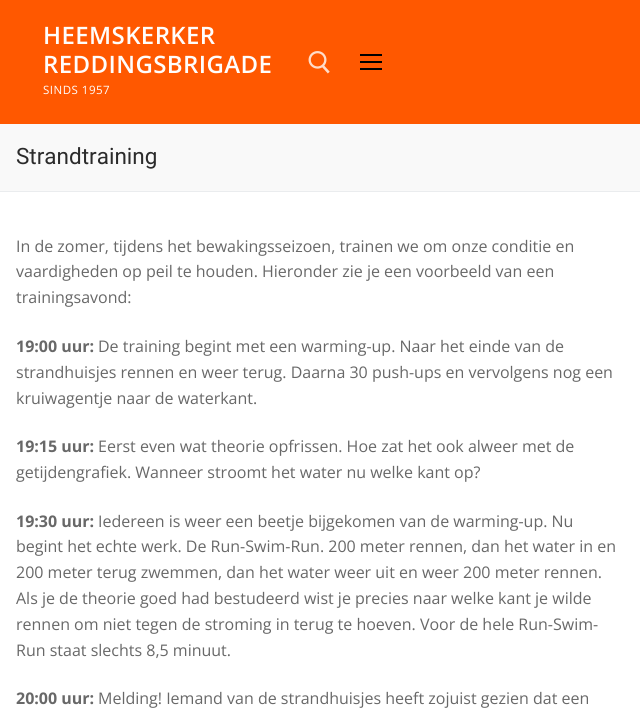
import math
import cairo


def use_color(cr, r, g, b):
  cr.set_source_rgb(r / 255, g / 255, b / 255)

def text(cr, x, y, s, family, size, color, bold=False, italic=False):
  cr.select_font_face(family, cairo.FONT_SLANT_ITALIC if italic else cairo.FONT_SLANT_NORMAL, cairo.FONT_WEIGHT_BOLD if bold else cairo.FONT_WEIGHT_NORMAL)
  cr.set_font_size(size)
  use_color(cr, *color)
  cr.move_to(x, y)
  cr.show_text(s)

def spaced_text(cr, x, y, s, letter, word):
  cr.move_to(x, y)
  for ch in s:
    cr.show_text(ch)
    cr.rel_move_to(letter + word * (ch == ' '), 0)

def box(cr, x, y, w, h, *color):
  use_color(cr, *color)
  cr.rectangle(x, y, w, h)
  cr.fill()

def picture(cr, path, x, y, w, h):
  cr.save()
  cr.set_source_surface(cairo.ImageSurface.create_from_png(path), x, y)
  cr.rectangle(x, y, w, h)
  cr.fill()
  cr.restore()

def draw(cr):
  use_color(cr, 249, 249, 249)
  cr.paint()
  box(cr, 0, 0, 640, 124, 255, 88, 0)
  picture(cr, "img_01.png", 308, 51, 22, 23)
  box(cr, 360, 61, 22, 2, 0, 0, 0)
  box(cr, 360, 54, 22, 2, 0, 0, 0)
  box(cr, 360, 68, 22, 2, 0, 0, 0)
  box(cr, 0, 191, 640, 1, 234, 236, 238)
  box(cr, 0, 192, 640, 521, 255, 255, 255)
  cr.select_font_face("Open Sans SemiBold")
  cr.set_font_size(24)
  use_color(cr, 255, 253, 252)
  spaced_text(cr, 43, 44, "HEEMSKERKER", 0.4, 0)
  spaced_text(cr, 43, 73, "REDDINGSBRIGADE", 0.4, 0)
  cr.select_font_face("Open Sans")
  cr.set_font_size(11.5)
  spaced_text(cr, 43, 94, "SINDS 1957", 0.5, 0)
  text(cr, 16, 164, "Strandtraining", "Roboto", 22.5, (43, 43, 43))
  text(cr, 16, 252, "In de zomer, tijdens het bewakingsseizoen, trainen we om onze conditie en", "Open Sans", 16, (104, 104, 104))
  text(cr, 16, 277, "vaardigheden op peil te houden. Hieronder zie je een voorbeeld van een", "Open Sans", 16, (104, 104, 104))
  text(cr, 16, 303, "trainingsavond:", "Open Sans", 16, (104, 104, 104))
  text(cr, 16, 352, "19:00 uur:", "Open Sans", 16, (104, 104, 104), bold=True)
  text(cr, 98, 352, "De training begint met een warming-up. Naar het einde van de", "Open Sans", 16, (104, 104, 104))
  text(cr, 16, 378, "strandhuisjes rennen en weer terug. Daarna 30 push-ups en vervolgens nog een", "Open Sans", 16, (104, 104, 104))
  text(cr, 16, 404, "kruiwagentje naar de waterkant.", "Open Sans", 16, (104, 104, 104))
  text(cr, 16, 452, "19:15 uur:", "Open Sans", 16, (104, 104, 104), bold=True)
  text(cr, 98, 452, "Eerst even wat theorie opfrissen. Hoe zat het ook alweer met de", "Open Sans", 16, (104, 104, 104))
  text(cr, 16, 478, "getijdengrafiek. Wanneer stroomt het water nu welke kant op?", "Open Sans", 16, (104, 104, 104))
  text(cr, 16, 527, "19:30 uur:", "Open Sans", 16, (104, 104, 104), bold=True)
  text(cr, 98, 527, "Iedereen is weer een beetje bijgekomen van de warming-up. Nu", "Open Sans", 16, (104, 104, 104))
  text(cr, 16, 552, "begint het echte werk. De Run-Swim-Run. 200 meter rennen, dan het water in en", "Open Sans", 16, (104, 104, 104))
  text(cr, 16, 578, "200 meter terug zwemmen, dan het water weer uit en weer 200 meter rennen.", "Open Sans", 16, (104, 104, 104))
  text(cr, 16, 604, "Als je de theorie goed had bestudeerd wist je precies naar welke kant je wilde", "Open Sans", 16, (104, 104, 104))
  text(cr, 16, 630, "rennen om niet tegen de stroming in terug te hoeven. Voor de hele Run-Swim-", "Open Sans", 16, (104, 104, 104))
  text(cr, 16, 656, "Run staat slechts 8,5 minuut.", "Open Sans", 16, (104, 104, 104))
  text(cr, 16, 704, "20:00 uur:", "Open Sans", 16, (104, 104, 104), bold=True)
  text(cr, 98, 704, "Melding! Iemand van de strandhuisjes heeft zojuist gezien dat een", "Open Sans", 16, (104, 104, 104))


surface = cairo.ImageSurface(cairo.FORMAT_RGB24, 640, 713)
cr = cairo.Context(surface)
options = cairo.FontOptions()
options.set_hint_metrics(cairo.HINT_METRICS_OFF)
options.set_hint_style(cairo.HINT_STYLE_NONE)
cr.set_font_options(options)
cr.set_miter_limit(4)
draw(cr)
surface.write_to_png("out.png")
